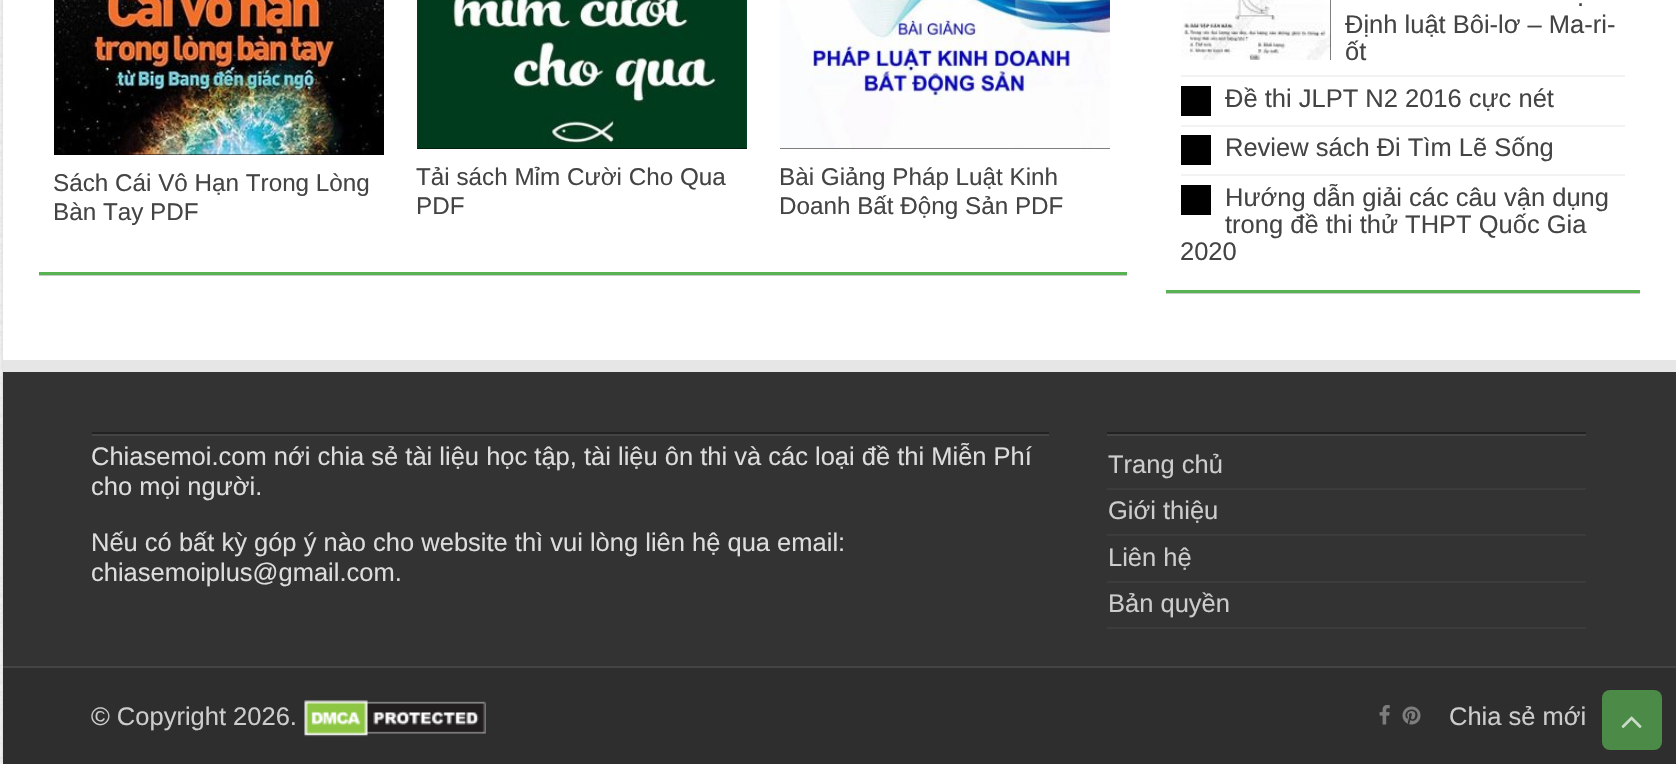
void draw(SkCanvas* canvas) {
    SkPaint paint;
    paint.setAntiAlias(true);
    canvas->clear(0xFFFFFFFF);
    canvas->drawImageRect(SkImages::DeferredFromEncodedData(SkData::MakeFromFileName("img1.png")), SkRect::MakeXYWH(0, 0, 3, 764), SkSamplingOptions());
    paint.setColor(0xFFCACACA);
    paint.setMaskFilter(SkMaskFilter::MakeBlur(kNormal_SkBlurStyle, 2));
    canvas->drawRect(SkRect::MakeXYWH(3, -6, 1673, 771), paint);
    paint.setMaskFilter(nullptr);
    paint.setColor(0xFFFFFFFF);
    canvas->drawRect(SkRect::MakeXYWH(3, 0, 1673, 360), paint);
    paint.setColor(0xFFCACACA);
    canvas->drawPath(SkPathBuilder().moveTo(39, 274).lineTo(39, 276).lineTo(1127, 276).lineTo(1127, -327).lineTo(1126, -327).lineTo(1126, 274).close().detach(), paint);
    paint.setColor(0xFFFFFFFF);
    canvas->drawRect(SkRect::MakeXYWH(1126, 0, 1, 272), paint);
    paint.setColor(0xFF57B252);
    canvas->drawRect(SkRect::MakeXYWH(39, 272, 1088, 3), paint);
    paint.setColor(0xFF000000);
    canvas->drawRect(SkRect::MakeXYWH(54, 154, 330, 1), paint);
    canvas->drawImageRect(SkImages::DeferredFromEncodedData(SkData::MakeFromFileName("img2.png")), SkRect::MakeXYWH(54, 0, 330, 155), SkSamplingOptions());
    SkFont font1(fontMgr->matchFamilyStyle("Liberation Sans", SkFontStyle::Normal()), 24.25f);
    font1.setSubpixel(true);
    paint.setColor(0xFF444444);
    canvas->drawString("Sách Cái Vô Hạn Trong Lòng", 53, 191, font1, paint);
    canvas->drawString("Bàn Tay PDF", 53, 220, font1, paint);
    paint.setColor(0xFF000000);
    canvas->drawRect(SkRect::MakeXYWH(417, 148, 330, 1), paint);
    canvas->drawImageRect(SkImages::DeferredFromEncodedData(SkData::MakeFromFileName("img3.png")), SkRect::MakeXYWH(417, 0, 330, 149), SkSamplingOptions());
    paint.setColor(0xFF444444);
    canvas->drawString("Tải sách Mỉm Cười Cho Qua", 416, 185, font1, paint);
    canvas->drawString("PDF", 416, 214, font1, paint);
    paint.setColor(0xFF000000);
    canvas->drawRect(SkRect::MakeXYWH(780, 148, 330, 1), paint);
    canvas->drawImageRect(SkImages::DeferredFromEncodedData(SkData::MakeFromFileName("img4.png")), SkRect::MakeXYWH(780, 0, 330, 149), SkSamplingOptions());
    paint.setColor(0xFF444444);
    canvas->drawString("Bài Giảng Pháp Luật Kinh", 779, 185, font1, paint);
    canvas->drawString("Doanh Bất Động Sản PDF", 779, 214, font1, paint);
    paint.setColor(0xFFCACACA);
    canvas->drawPath(SkPathBuilder().moveTo(1166, 292).lineTo(1166, 294).lineTo(1640, 294).lineTo(1640, -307).lineTo(1640, 292).close().detach(), paint);
    paint.setColor(0xFF57B252);
    canvas->drawRect(SkRect::MakeXYWH(1166, 290, 474, 3), paint);
    paint.setColor(0xFFF2F2F2);
    canvas->drawRect(SkRect::MakeXYWH(1181, 75, 444, 2), paint);
    paint.setColor(0xFF000000);
    canvas->drawRect(SkRect::MakeXYWH(1330, 0, 1, 60), paint);
    canvas->drawImageRect(SkImages::DeferredFromEncodedData(SkData::MakeFromFileName("img5.png")), SkRect::MakeXYWH(1181, 0, 150, 60), SkSamplingOptions());
    SkFont font2(fontMgr->matchFamilyStyle("Liberation Sans", SkFontStyle::Normal()), 25.5f);
    font2.setSubpixel(true);
    paint.setColor(0xFF444444);
    canvas->drawString(".", 1577, 6, font2, paint);
    canvas->drawString("Định luật Bôi-lơ – Ma-ri-", 1345, 33, font2, paint);
    canvas->drawString("ốt", 1345, 60, font2, paint);
    paint.setColor(0xFFF2F2F2);
    canvas->drawRect(SkRect::MakeXYWH(1181, 125, 444, 2), paint);
    paint.setColor(0xFF000000);
    canvas->drawRect(SkRect::MakeXYWH(1181, 86, 30, 30), paint);
    paint.setColor(0xFF444444);
    canvas->drawString("Đề thi JLPT N2 2016 cực nét", 1225, 107, font2, paint);
    paint.setColor(0xFFF2F2F2);
    canvas->drawRect(SkRect::MakeXYWH(1181, 174, 444, 2), paint);
    paint.setColor(0xFF000000);
    canvas->drawRect(SkRect::MakeXYWH(1181, 135, 30, 30), paint);
    paint.setColor(0xFF444444);
    canvas->drawString("Review sách Đi Tìm Lẽ Sống", 1225, 156, font2, paint);
    canvas->drawString("Hướng dẫn giải các câu vận dụng", 1225, 206, font2, paint);
    canvas->drawString("trong đề thi thử THPT Quốc Gia", 1225, 233, font2, paint);
    canvas->drawString("2020", 1180, 260, font2, paint);
    paint.setColor(0xFF000000);
    canvas->drawRect(SkRect::MakeXYWH(1181, 185, 30, 30), paint);
    paint.setColor(0xFFE6E6E6);
    canvas->drawPath(SkPathBuilder().moveTo(3, 360).lineTo(3, 372).lineTo(1676, 372).lineTo(1676, 654).lineTo(1676, 360).close().detach(), paint);
    paint.setColor(0xFF333333);
    canvas->drawRect(SkRect::MakeXYWH(3, 372, 1673, 294), paint);
    paint.setColor(0xFF222222);
    canvas->drawRect(SkRect::MakeXYWH(92, 432, 957, 2), paint);
    paint.setColor(0xFF444444);
    canvas->drawRect(SkRect::MakeXYWH(92, 434, 957, 2), paint);
    paint.setColor(0xFFDDDDDD);
    canvas->drawString("Chiasemoi.com nới chia sẻ tài liệu học tập, tài liệu ôn thi và các loại đề thi Miễn Phí", 91, 465, font2, paint);
    canvas->drawString("cho mọi người.", 91, 495, font2, paint);
    canvas->drawString("Nếu có bất kỳ góp ý nào cho website thì vui lòng liên hệ qua email:", 91, 551, font2, paint);
    canvas->drawString("chiasemoiplus@gmail.com.", 91, 581, font2, paint);
    paint.setColor(0xFF222222);
    canvas->drawRect(SkRect::MakeXYWH(1107, 432, 479, 2), paint);
    paint.setColor(0xFF444444);
    canvas->drawRect(SkRect::MakeXYWH(1107, 434, 479, 2), paint);
    paint.setColor(0xFF3C3C3C);
    canvas->drawRect(SkRect::MakeXYWH(1107, 488, 479, 2), paint);
    paint.setColor(0xFFCCCCCC);
    canvas->drawString("Trang chủ", 1108, 473, font2, paint);
    paint.setColor(0xFF3C3C3C);
    canvas->drawRect(SkRect::MakeXYWH(1107, 534, 479, 2), paint);
    paint.setColor(0xFFCCCCCC);
    canvas->drawString("Giới thiệu", 1108, 519, font2, paint);
    paint.setColor(0xFF3C3C3C);
    canvas->drawRect(SkRect::MakeXYWH(1107, 581, 479, 2), paint);
    paint.setColor(0xFFCCCCCC);
    canvas->drawString("Liên hệ", 1108, 566, font2, paint);
    paint.setColor(0xFF3C3C3C);
    canvas->drawRect(SkRect::MakeXYWH(1107, 627, 479, 2), paint);
    paint.setColor(0xFFCCCCCC);
    canvas->drawString("Bản quyền", 1108, 612, font2, paint);
    paint.setColor(0xFF2E2E2E);
    canvas->drawRect(SkRect::MakeXYWH(3, 668, 1673, 96), paint);
    paint.setColor(0xFF444444);
    canvas->drawRect(SkRect::MakeXYWH(3, 666, 1673, 2), paint);
    paint.setColor(0xFFCCCCCC);
    canvas->drawString("© Copyright 2026.", 91, 725, font2, paint);
    canvas->drawImageRect(SkImages::DeferredFromEncodedData(SkData::MakeFromFileName("img6.png")), SkRect::MakeXYWH(304, 700, 182, 37), SkSamplingOptions());
    canvas->drawImageRect(SkImages::DeferredFromEncodedData(SkData::MakeFromFileName("img7.png")), SkRect::MakeXYWH(1379, 705, 11, 20), SkSamplingOptions());
    canvas->drawImageRect(SkImages::DeferredFromEncodedData(SkData::MakeFromFileName("img8.png")), SkRect::MakeXYWH(1402, 706, 19, 19), SkSamplingOptions());
    canvas->drawString("Chia sẻ mới", 1449, 725, font2, paint);
    paint.setColor(0xFF4B8A47);
    canvas->drawRoundRect(SkRect::MakeXYWH(1602, 690, 60, 60), 8, 8, paint);
    canvas->drawImageRect(SkImages::DeferredFromEncodedData(SkData::MakeFromFileName("img9.png")), SkRect::MakeXYWH(1621, 716, 21, 12), SkSamplingOptions());
}
